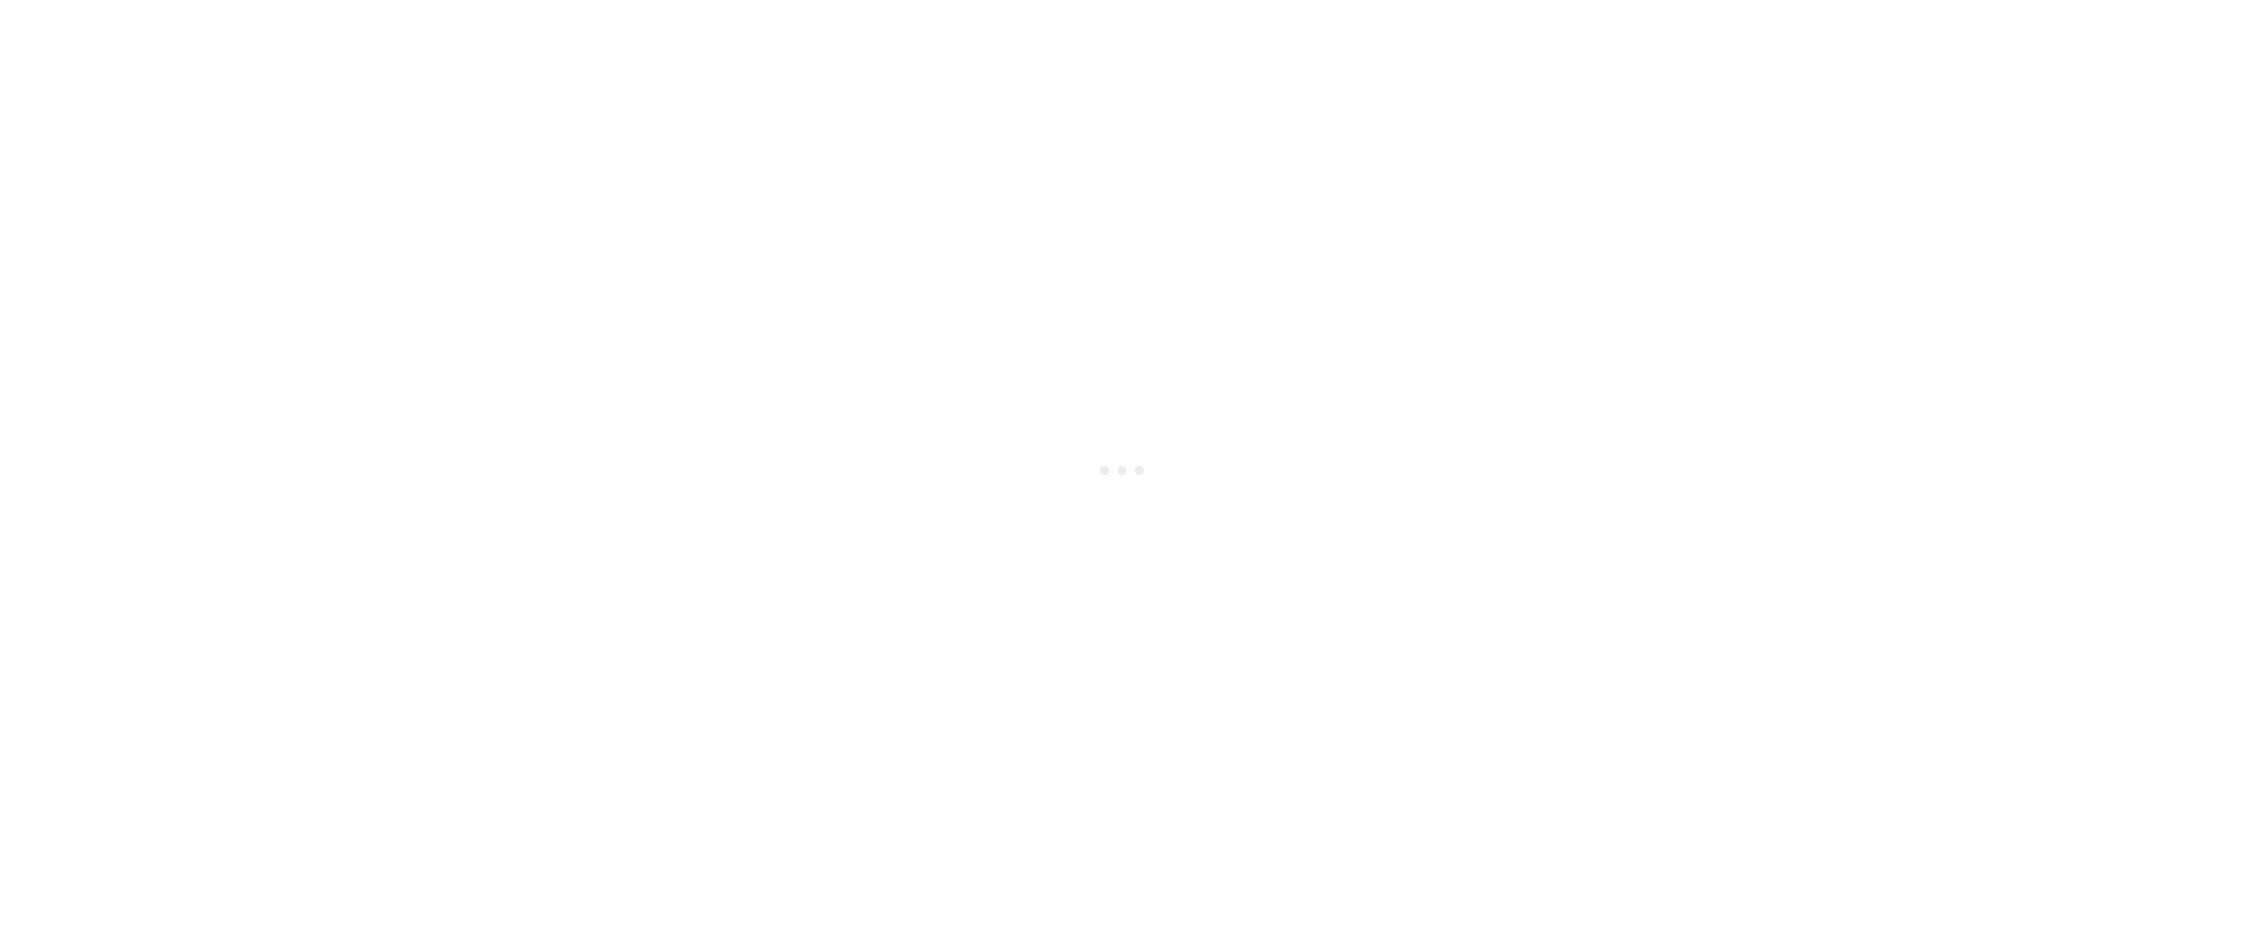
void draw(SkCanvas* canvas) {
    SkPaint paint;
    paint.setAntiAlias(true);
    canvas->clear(0xFFFFFFFF);
    paint.setColor(0xFFECECEC);
    canvas->drawCircle(1104.5f, 470.5f, 4.5f, paint);
    canvas->drawRoundRect(SkRect::MakeXYWH(1118, 466, 8, 9), 4, 4, paint);
    canvas->drawCircle(1139.5f, 470.5f, 4.5f, paint);
}
